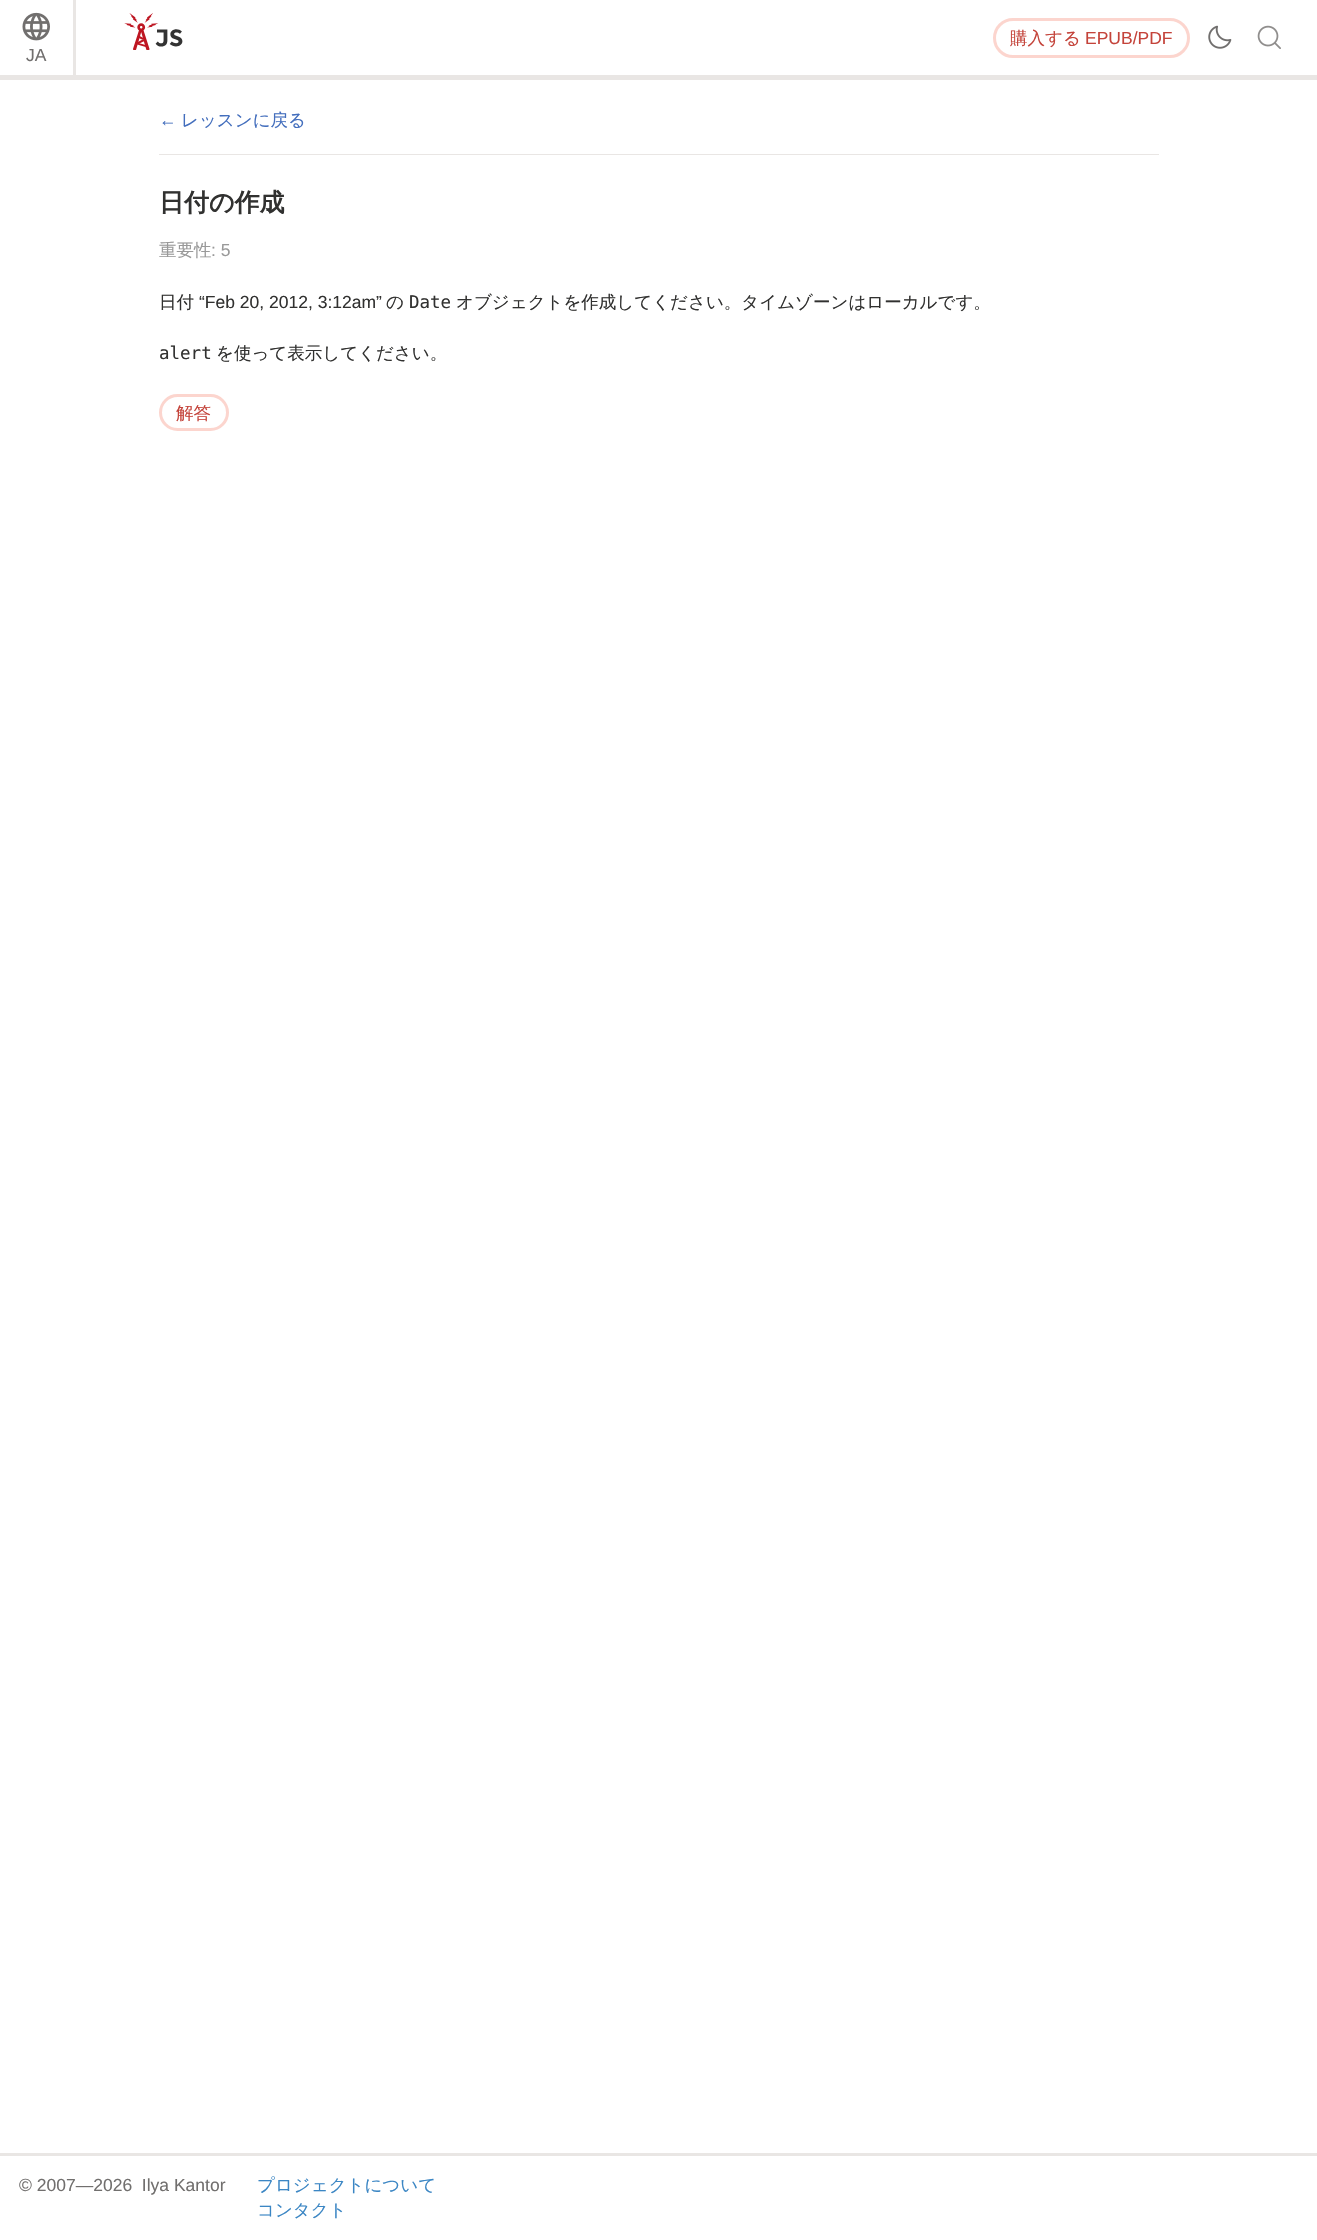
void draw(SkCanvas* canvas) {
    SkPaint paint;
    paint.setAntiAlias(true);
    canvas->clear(0xFFFFFFFF);
    paint.setColor(0xFFE9E6E4);
    canvas->drawRect(SkRect::MakeXYWH(0, 75, 1317, 5), paint);
    canvas->drawImageRect(SkImages::DeferredFromEncodedData(SkData::MakeFromFileName("img1.png")), SkRect::MakeXYWH(124, 13, 59, 37), SkSamplingOptions());
    paint.setStyle(SkPaint::kStroke_Style);
    paint.setStrokeWidth(3);
    paint.setColor(0xFFFCD5CE);
    canvas->drawRoundRect(SkRect::MakeXYWH(994.5f, 19.5f, 194, 37), 18.5f, 18.5f, paint);
    SkFont font1(fontMgr->matchFamilyStyle("WenQuanYi Zen Hei", SkFontStyle(500, SkFontStyle::kNormal_Width, SkFontStyle::kUpright_Slant)), 17.5f);
    font1.setSubpixel(true);
    paint.setStyle(SkPaint::kFill_Style);
    paint.setColor(0xFFC4433A);
    canvas->drawString("購入する", 1010, 44, font1, paint);
    SkFont font2(fontMgr->matchFamilyStyle("Liberation Sans", SkFontStyle::Normal()), 17.5f);
    font2.setSubpixel(true);
    canvas->drawString("EPUB/PDF", 1085, 44, font2, paint);
    canvas->drawImageRect(SkImages::DeferredFromEncodedData(SkData::MakeFromFileName("img2.png")), SkRect::MakeXYWH(1208, 25, 24, 24), SkSamplingOptions());
    canvas->drawImageRect(SkImages::DeferredFromEncodedData(SkData::MakeFromFileName("img3.png")), SkRect::MakeXYWH(1257, 25, 24, 24), SkSamplingOptions());
    paint.setColor(0xFFE9E6E4);
    canvas->drawRect(SkRect::MakeXYWH(73, 0, 3, 75), paint);
    canvas->drawImageRect(SkImages::DeferredFromEncodedData(SkData::MakeFromFileName("img4.png")), SkRect::MakeXYWH(22, 12, 28, 29), SkSamplingOptions());
    paint.setColor(0xFF716F6E);
    canvas->drawString("JA", 26, 61, font2, paint);
    paint.setColor(0xFF436EBD);
    canvas->drawString("←", 159, 126, font2, paint);
    canvas->drawString("レッスンに戻る", 181, 126, font1, paint);
    paint.setColor(0xFFE9E6E4);
    canvas->drawRect(SkRect::MakeXYWH(159, 154, 1000, 1), paint);
    SkFont font3(fontMgr->matchFamilyStyle("WenQuanYi Zen Hei", SkFontStyle::Bold()), 25);
    font3.setSubpixel(true);
    paint.setColor(0xFF313130);
    canvas->drawString("日付の作成", 159, 211, font3, paint);
    paint.setColor(0xFF999999);
    canvas->drawString("重要性", 159, 256, font1, paint);
    canvas->drawString(": 5", 211, 256, font2, paint);
    paint.setColor(0xFF313130);
    canvas->drawString("日付", 159, 308, font1, paint);
    canvas->drawString("“Feb 20, 2012, 3:12am”", 199, 308, font2, paint);
    canvas->drawString("の", 386, 308, font1, paint);
    SkFont font4(fontMgr->matchFamilyStyle("DejaVu Sans Mono", SkFontStyle::Normal()), 17.5f);
    font4.setSubpixel(true);
    canvas->drawString("Date", 409, 308, font4, paint);
    canvas->drawString("オブジェクトを作成してください。タイムゾーンはローカルです。", 456, 308, font1, paint);
    canvas->drawString("alert", 159, 359, font4, paint);
    canvas->drawString("を使って表示してください。", 216, 359, font1, paint);
    paint.setStyle(SkPaint::kStroke_Style);
    paint.setColor(0xFFFCD5CE);
    canvas->drawRoundRect(SkRect::MakeXYWH(160.5f, 395.5f, 67, 34), 17, 17, paint);
    paint.setStyle(SkPaint::kFill_Style);
    paint.setColor(0xFFC4433A);
    canvas->drawString("解答", 176, 419, font1, paint);
    paint.setColor(0xFFE9E6E4);
    canvas->drawRect(SkRect::MakeXYWH(0, 2153, 1317, 3), paint);
    paint.setColor(0xFF716F6E);
    canvas->drawString("© 2007—2026  Ilya Kantor", 19, 2191, font2, paint);
    paint.setColor(0xFF3B86C4);
    canvas->drawString("プロジェクトについて", 257, 2191, font1, paint);
    canvas->drawString("コンタクト", 257, 2216, font1, paint);
}
